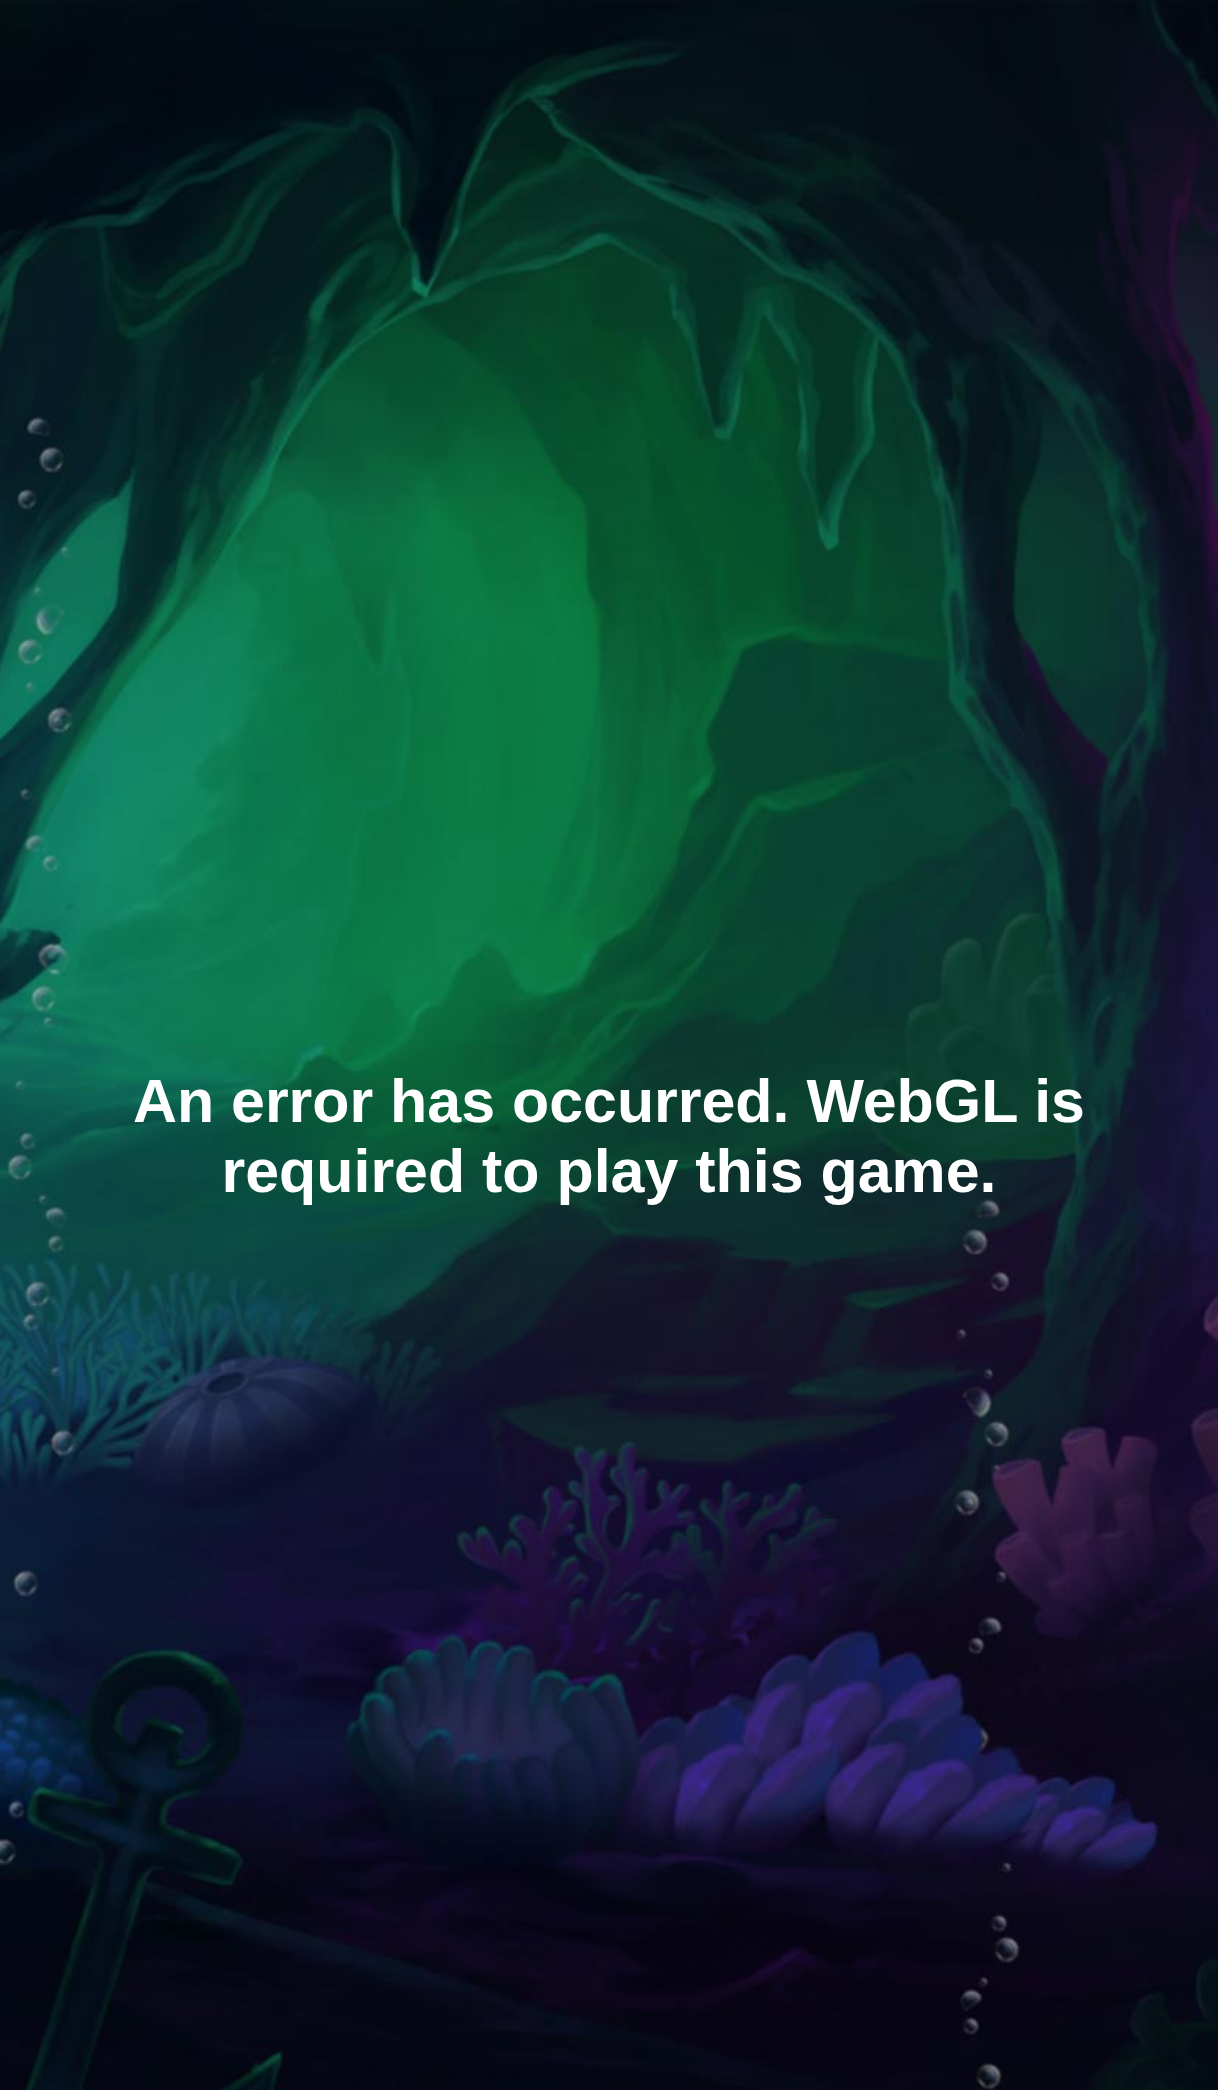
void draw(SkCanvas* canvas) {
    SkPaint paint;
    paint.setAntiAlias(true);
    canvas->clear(0xFFFFFFFF);
    canvas->drawImageRect(SkImages::DeferredFromEncodedData(SkData::MakeFromFileName("img1.png")), SkRect::MakeXYWH(0, 0, 1218, 2090), SkSamplingOptions());
}
